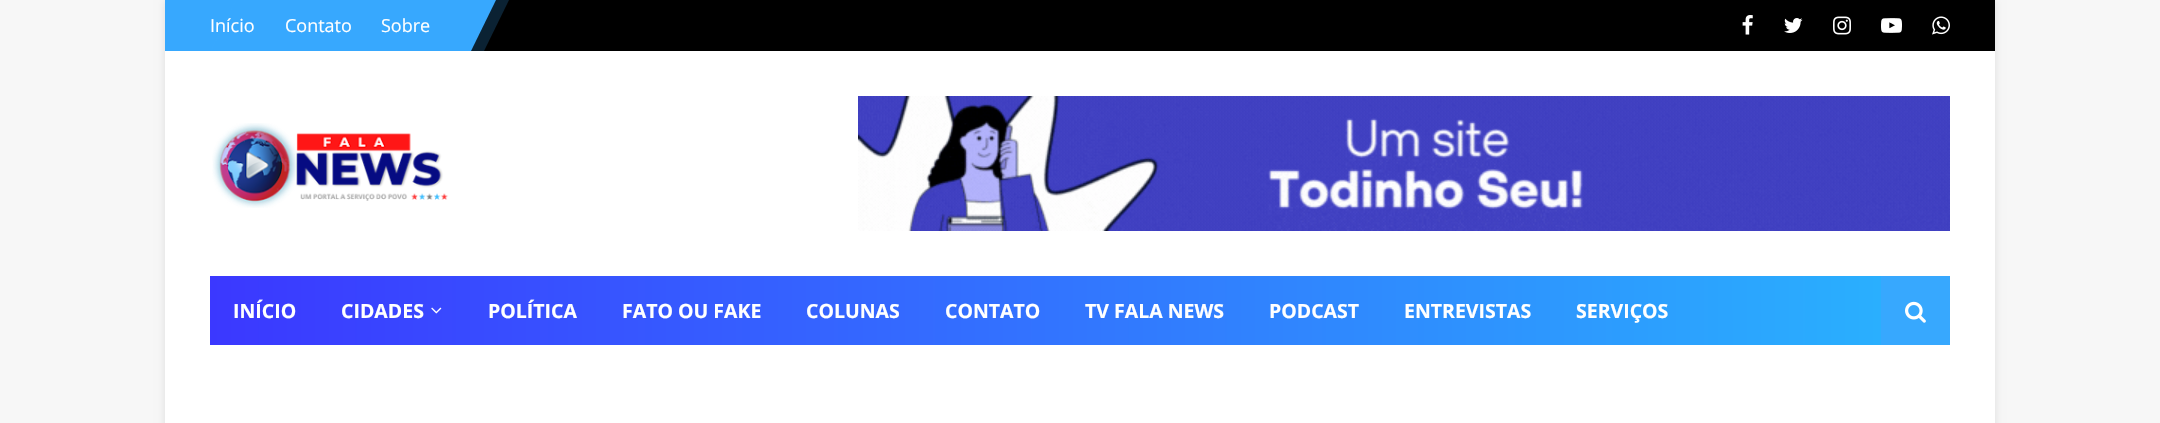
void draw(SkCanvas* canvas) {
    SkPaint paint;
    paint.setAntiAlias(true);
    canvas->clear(0xFFF7F7F7);
    paint.setColor(0x1A000000);
    paint.setMaskFilter(SkMaskFilter::MakeBlur(kNormal_SkBlurStyle, 4));
    canvas->drawRect(SkRect::MakeXYWH(165, 0, 1830, 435), paint);
    paint.setMaskFilter(nullptr);
    paint.setColor(0xFFFFFFFF);
    canvas->drawRect(SkRect::MakeXYWH(165, 51, 1830, 372), paint);
    paint.setColor(0xFF000000);
    canvas->drawRect(SkRect::MakeXYWH(471, 0, 1524, 51), paint);
    paint.setColor(0xFF37A8FE);
    canvas->drawRect(SkRect::MakeXYWH(165, 0, 57, 51), paint);
    canvas->drawPath(SkPathBuilder().moveTo(222, 0).lineTo(496, 0).lineTo(471, 51).lineTo(198, 51).close().detach(), paint);
    paint.setColor(0x3337A8FE);
    canvas->drawPath(SkPathBuilder().moveTo(236, 0).lineTo(509, 0).lineTo(484, 51).lineTo(211, 51).close().detach(), paint);
    SkFont font1(fontMgr->matchFamilyStyle("Open Sans", SkFontStyle::Normal()), 18);
    font1.setSubpixel(true);
    paint.setColor(0xFFFFFFFF);
    canvas->drawString("Início", 210, 32, font1, paint);
    canvas->drawString("Contato", 285, 32, font1, paint);
    canvas->drawString("Sobre", 381, 32, font1, paint);
    canvas->drawImageRect(SkImages::DeferredFromEncodedData(SkData::MakeFromFileName("img1.png")), SkRect::MakeXYWH(1742, 15, 11, 20), SkSamplingOptions());
    canvas->drawImageRect(SkImages::DeferredFromEncodedData(SkData::MakeFromFileName("img2.png")), SkRect::MakeXYWH(1784, 18, 19, 15), SkSamplingOptions());
    canvas->drawImageRect(SkImages::DeferredFromEncodedData(SkData::MakeFromFileName("img3.png")), SkRect::MakeXYWH(1833, 16, 18, 19), SkSamplingOptions());
    canvas->drawImageRect(SkImages::DeferredFromEncodedData(SkData::MakeFromFileName("img4.png")), SkRect::MakeXYWH(1881, 18, 21, 15), SkSamplingOptions());
    canvas->drawImageRect(SkImages::DeferredFromEncodedData(SkData::MakeFromFileName("img5.png")), SkRect::MakeXYWH(1932, 16, 18, 19), SkSamplingOptions());
    canvas->drawImageRect(SkImages::DeferredFromEncodedData(SkData::MakeFromFileName("img6.png")), SkRect::MakeXYWH(212, 123, 236, 85), SkSamplingOptions());
    canvas->drawImageRect(SkImages::DeferredFromEncodedData(SkData::MakeFromFileName("img7.png")), SkRect::MakeXYWH(858, 96, 1092, 135), SkSamplingOptions());
    {
        const SkColor colors[] = {0xFF3B38FF, 0xFF29B4FE};
        const float stops[] = {0, 1};
        const SkPoint ends[] = {{210, 311}, {1950, 310}};
        paint.setShader(SkGradientShader::MakeLinear(ends, colors, stops, 2, SkTileMode::kClamp));
        paint.setAlpha(255);
    }
    canvas->drawRect(SkRect::MakeXYWH(210, 276, 1671, 69), paint);
    SkFont font2(fontMgr->matchFamilyStyle("Open Sans", SkFontStyle::Bold()), 19.5f);
    font2.setSubpixel(true);
    paint.setShader(nullptr);
    paint.setColor(0xFFFFFFFF);
    canvas->drawString("INÍCIO", 233, 318, font2, paint);
    canvas->drawString("CIDADES", 341, 318, font2, paint);
    canvas->drawImageRect(SkImages::DeferredFromEncodedData(SkData::MakeFromFileName("img8.png")), SkRect::MakeXYWH(431, 307, 11, 7), SkSamplingOptions());
    canvas->drawString("POLÍTICA", 488, 318, font2, paint);
    canvas->drawString("FATO OU FAKE", 622, 318, font2, paint);
    canvas->drawString("COLUNAS", 806, 318, font2, paint);
    canvas->drawString("CONTATO", 945, 318, font2, paint);
    canvas->drawString("TV FALA NEWS", 1085, 318, font2, paint);
    canvas->drawString("PODCAST", 1269, 318, font2, paint);
    canvas->drawString("ENTREVISTAS", 1404, 318, font2, paint);
    canvas->drawString("SERVIÇOS", 1576, 318, font2, paint);
    paint.setColor(0xFF37A8FE);
    canvas->drawRect(SkRect::MakeXYWH(1881, 276, 69, 69), paint);
    canvas->drawImageRect(SkImages::DeferredFromEncodedData(SkData::MakeFromFileName("img9.png")), SkRect::MakeXYWH(1905, 301, 21, 22), SkSamplingOptions());
}
